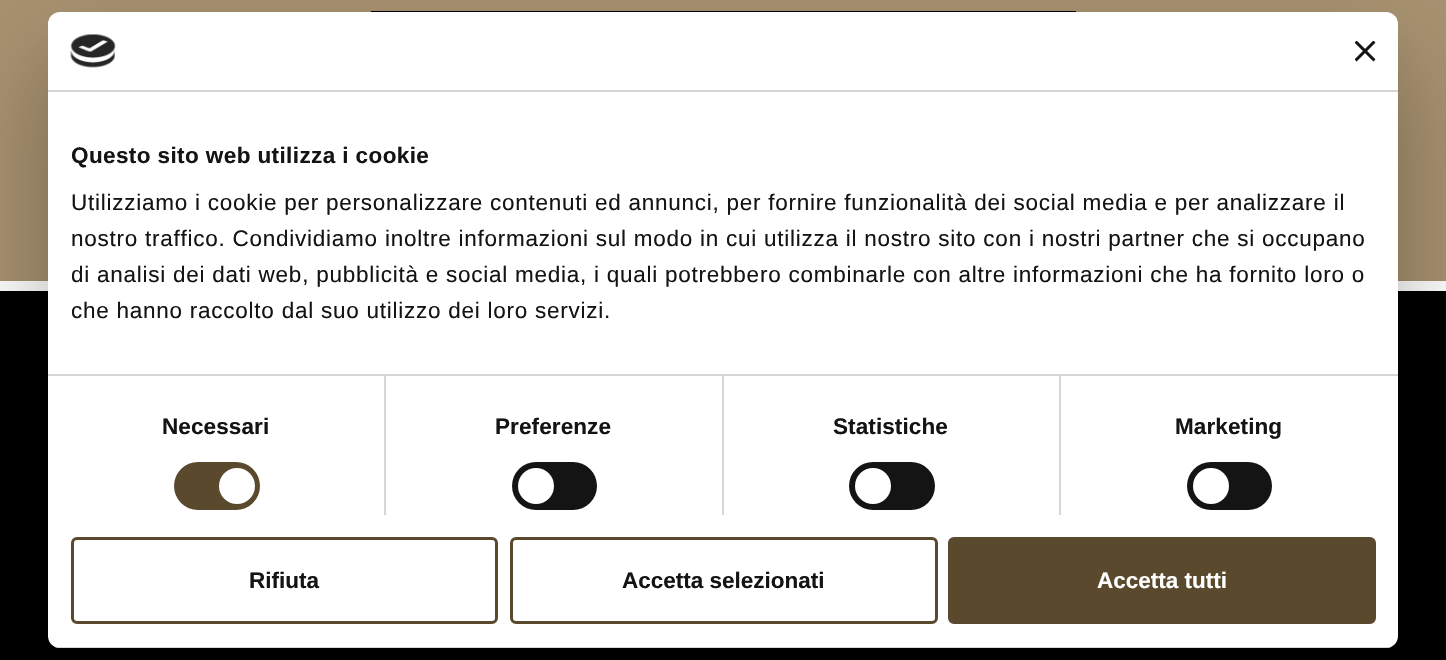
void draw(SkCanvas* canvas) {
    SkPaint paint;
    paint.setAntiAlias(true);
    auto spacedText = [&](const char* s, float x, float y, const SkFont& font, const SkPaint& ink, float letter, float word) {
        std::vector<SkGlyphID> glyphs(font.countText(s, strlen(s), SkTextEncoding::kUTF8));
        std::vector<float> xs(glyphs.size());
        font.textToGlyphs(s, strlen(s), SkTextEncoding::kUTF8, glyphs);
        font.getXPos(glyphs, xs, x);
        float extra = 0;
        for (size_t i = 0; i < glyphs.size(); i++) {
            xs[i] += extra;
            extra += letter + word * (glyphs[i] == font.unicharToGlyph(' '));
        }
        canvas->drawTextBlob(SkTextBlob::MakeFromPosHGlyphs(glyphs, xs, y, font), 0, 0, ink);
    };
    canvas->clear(0xFFFFFFFF);
    paint.setColor(0xFFA89270);
    canvas->drawRect(SkRect::MakeXYWH(0, 0, 1446, 281), paint);
    paint.setColor(0xFF000000);
    canvas->drawRect(SkRect::MakeXYWH(371, 11, 705, 1), paint);
    canvas->drawRect(SkRect::MakeXYWH(0, 291, 1446, 369), paint);
    paint.setColor(0x4D000000);
    paint.setMaskFilter(SkMaskFilter::MakeBlur(kNormal_SkBlurStyle, 51));
    canvas->drawRoundRect(SkRect::MakeXYWH(48, 60, 1350, 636), 12, 12, paint);
    paint.setMaskFilter(nullptr);
    paint.setColor(0xFFFFFFFF);
    canvas->drawRoundRect(SkRect::MakeXYWH(48, 12, 1350, 636), 12, 12, paint);
    paint.setColor(0xFFD6D6D6);
    canvas->drawRect(SkRect::MakeXYWH(48, 90, 1350, 2), paint);
    canvas->drawImageRect(SkImages::DeferredFromEncodedData(SkData::MakeFromFileName("img1.png")), SkRect::MakeXYWH(70, 34, 46, 34), SkSamplingOptions());
    canvas->drawImageRect(SkImages::DeferredFromEncodedData(SkData::MakeFromFileName("img2.png")), SkRect::MakeXYWH(1355, 41, 21, 21), SkSamplingOptions());
    canvas->drawRect(SkRect::MakeXYWH(384, 375, 2, 140), paint);
    canvas->drawRect(SkRect::MakeXYWH(722, 375, 2, 140), paint);
    canvas->drawRect(SkRect::MakeXYWH(1059, 375, 2, 140), paint);
    canvas->drawRect(SkRect::MakeXYWH(48, 374, 1350, 2), paint);
    SkFont font1(fontMgr->matchFamilyStyle("Liberation Sans", SkFontStyle::Bold()), 22.5f);
    font1.setSubpixel(true);
    paint.setColor(0xFF141414);
    spacedText("Questo sito web utilizza i cookie", 71, 163, font1, paint, 0.4f, 0);
    SkFont font2(fontMgr->matchFamilyStyle("Liberation Sans", SkFontStyle::Normal()), 22.5f);
    font2.setSubpixel(true);
    spacedText("Utilizziamo i cookie per personalizzare contenuti ed annunci, per fornire funzionalità dei social media e per analizzare il", 71, 210, font2, paint, 0.75f, 0);
    spacedText("nostro traffico. Condividiamo inoltre informazioni sul modo in cui utilizza il nostro sito con i nostri partner che si occupano", 71, 246, font2, paint, 0.75f, 0);
    spacedText("di analisi dei dati web, pubblicità e social media, i quali potrebbero combinarle con altre informazioni che ha fornito loro o", 71, 282, font2, paint, 0.75f, 0);
    spacedText("che hanno raccolto dal suo utilizzo dei loro servizi.", 71, 318, font2, paint, 0.75f, 0);
    spacedText("Necessari", 162, 434, font1, paint, 0.1f, 0);
    paint.setColor(0xFF5A492D);
    canvas->drawRoundRect(SkRect::MakeXYWH(174, 462, 86, 48), 24, 24, paint);
    paint.setColor(0xFFFFFFFF);
    canvas->drawCircle(237, 486, 18, paint);
    paint.setColor(0xFF141414);
    spacedText("Preferenze", 495, 434, font1, paint, 0.1f, 0);
    canvas->drawRoundRect(SkRect::MakeXYWH(512, 462, 85, 48), 24, 24, paint);
    paint.setColor(0xFFFFFFFF);
    canvas->drawCircle(536, 486, 18, paint);
    paint.setColor(0xFF141414);
    spacedText("Statistiche", 833, 434, font1, paint, 0.1f, 0);
    canvas->drawRoundRect(SkRect::MakeXYWH(849, 462, 86, 48), 24, 24, paint);
    paint.setColor(0xFFFFFFFF);
    canvas->drawCircle(873, 486, 18, paint);
    paint.setColor(0xFF141414);
    spacedText("Marketing", 1175, 434, font1, paint, 0.1f, 0);
    canvas->drawRoundRect(SkRect::MakeXYWH(1187, 462, 85, 48), 24, 24, paint);
    paint.setColor(0xFFFFFFFF);
    canvas->drawCircle(1211, 486, 18, paint);
    canvas->save();
    canvas->clipPath(SkPathBuilder().moveTo(60, 12).lineTo(1386, 12).cubicTo(1392.5f, 12, 1398, 17.5f, 1398, 24).lineTo(1398, 636).cubicTo(1398, 642.5f, 1392.5f, 648, 1386, 648).lineTo(60, 648).cubicTo(53.5f, 648, 48, 642.5f, 48, 636).lineTo(48, 24).cubicTo(48, 17.5f, 53.5f, 12, 60, 12).close().detach(), true);
    paint.setColor(0xFFD6D6D6);
    canvas->drawRect(SkRect::MakeXYWH(48, 647, 1350, 1), paint);
    canvas->restore();
    paint.setStyle(SkPaint::kStroke_Style);
    paint.setStrokeWidth(3);
    paint.setColor(0xFF5A492D);
    canvas->drawRoundRect(SkRect::MakeXYWH(72.5f, 538.5f, 424, 84), 4.5f, 4.5f, paint);
    paint.setStyle(SkPaint::kFill_Style);
    paint.setColor(0xFF141414);
    canvas->drawString("Rifiuta", 249, 588, font1, paint);
    paint.setStyle(SkPaint::kStroke_Style);
    paint.setColor(0xFF5A492D);
    canvas->drawRoundRect(SkRect::MakeXYWH(511.5f, 538.5f, 425, 84), 4.5f, 4.5f, paint);
    paint.setStyle(SkPaint::kFill_Style);
    paint.setColor(0xFF141414);
    canvas->drawString("Accetta selezionati", 622, 588, font1, paint);
    paint.setColor(0xFF5A492D);
    canvas->drawRoundRect(SkRect::MakeXYWH(949.5f, 538.5f, 425, 84), 4.5f, 4.5f, paint);
    paint.setStyle(SkPaint::kStroke_Style);
    canvas->drawRoundRect(SkRect::MakeXYWH(949.5f, 538.5f, 425, 84), 4.5f, 4.5f, paint);
    paint.setStyle(SkPaint::kFill_Style);
    paint.setColor(0xFFFFFFFF);
    canvas->drawString("Accetta tutti", 1097, 588, font1, paint);
}
